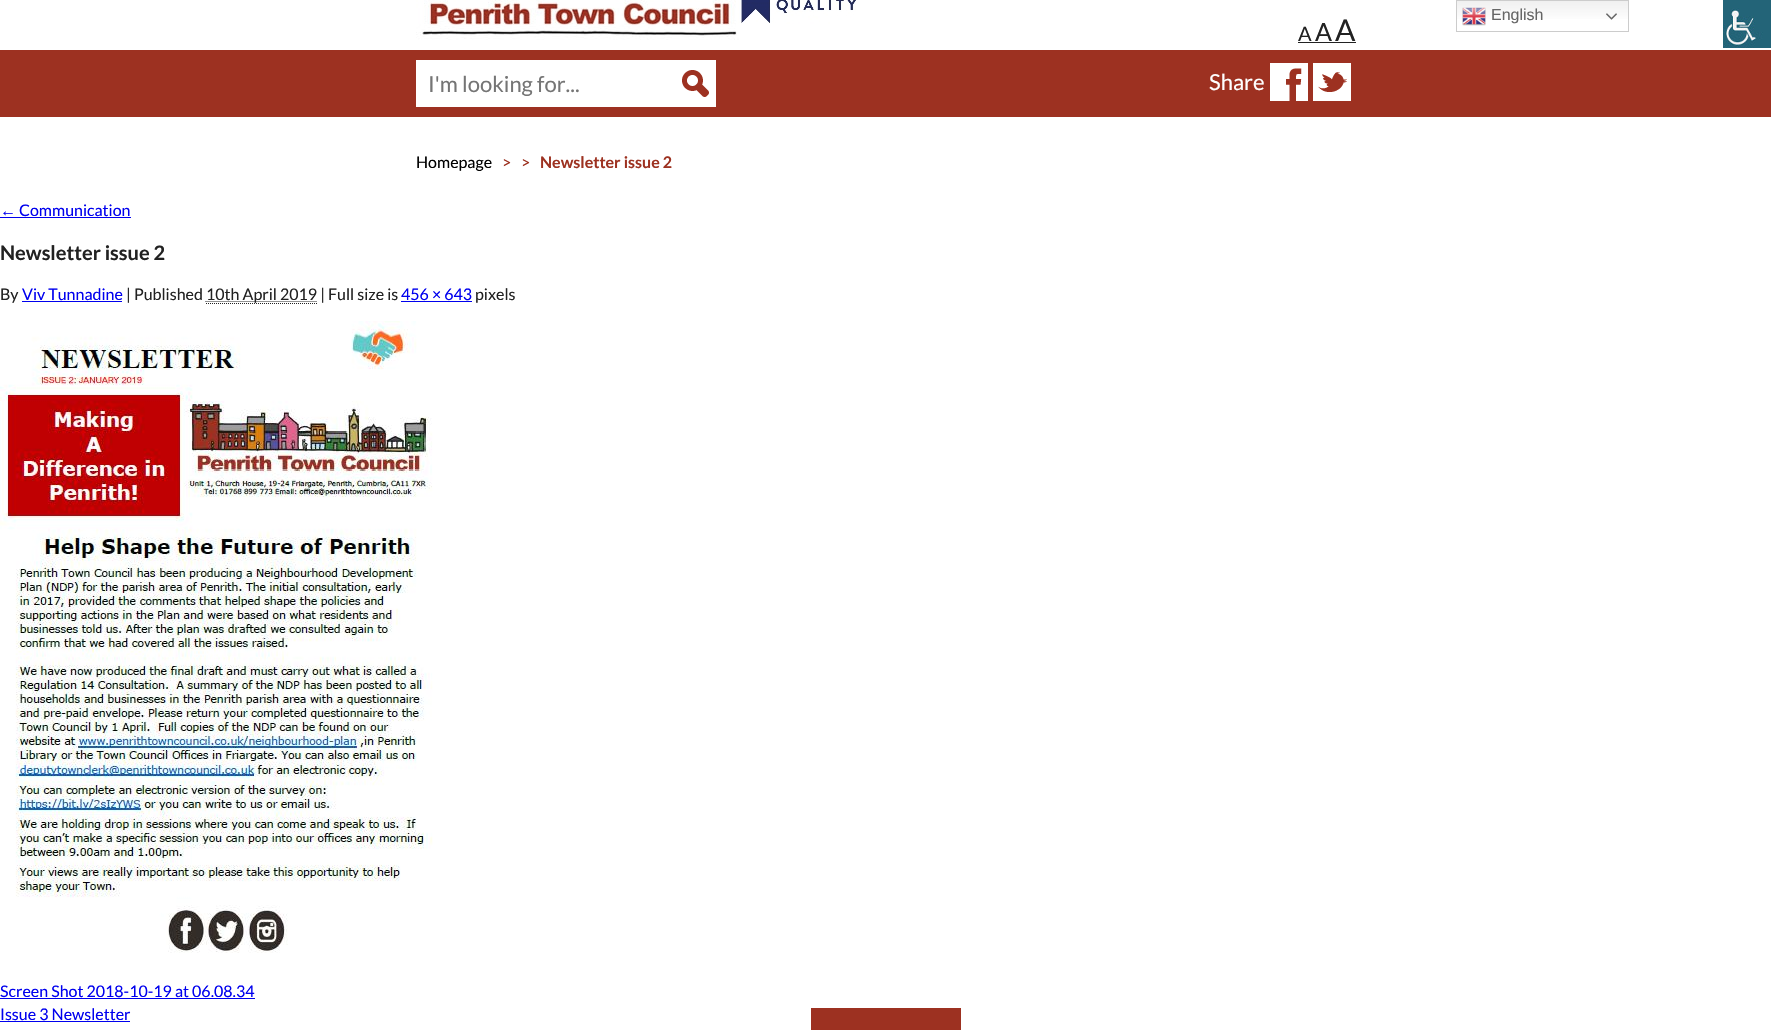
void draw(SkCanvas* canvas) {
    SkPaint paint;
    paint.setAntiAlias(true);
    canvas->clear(0xFFFFFFFF);
    {
        const SkColor colors[] = {0xFFEFEFEF, 0xFFFFFFFF};
        const float stops[] = {0, 0.7f};
        const SkPoint ends[] = {{1543, 0}, {1543, 32}};
        paint.setShader(SkGradientShader::MakeLinear(ends, colors, stops, 2, SkTileMode::kClamp));
        paint.setAlpha(255);
    }
    canvas->drawRect(SkRect::MakeXYWH(1457, 1, 171, 18), paint);
    paint.setStyle(SkPaint::kStroke_Style);
    paint.setStrokeWidth(1);
    paint.setShader(nullptr);
    paint.setColor(0xFFCCCCCC);
    canvas->drawRect(SkRect::MakeXYWH(1456.5f, 0.5f, 172, 31), paint);
    canvas->drawImageRect(SkImages::DeferredFromEncodedData(SkData::MakeFromFileName("img1.png")), SkRect::MakeXYWH(1462, 7, 24, 19), SkSamplingOptions());
    SkFont font1(fontMgr->matchFamilyStyle("Liberation Sans", SkFontStyle::Normal()), 16);
    font1.setSubpixel(true);
    paint.setStyle(SkPaint::kFill_Style);
    paint.setColor(0xFF666666);
    canvas->drawString("English", 1491, 20, font1, paint);
    canvas->drawImageRect(SkImages::DeferredFromEncodedData(SkData::MakeFromFileName("img2.png")), SkRect::MakeXYWH(1606, 13, 11, 7), SkSamplingOptions());
    canvas->drawImageRect(SkImages::DeferredFromEncodedData(SkData::MakeFromFileName("img3.png")), SkRect::MakeXYWH(1723, 0, 48, 48), SkSamplingOptions());
    canvas->drawImageRect(SkImages::DeferredFromEncodedData(SkData::MakeFromFileName("img4.png")), SkRect::MakeXYWH(416, 0, 440, 40), SkSamplingOptions());
    SkFont font2(fontMgr->matchFamilyStyle("Lato", SkFontStyle::Normal()), 20);
    font2.setSubpixel(true);
    paint.setColor(0xFF222222);
    canvas->drawString("A", 1298, 41, font2, paint);
    canvas->drawRect(SkRect::MakeXYWH(1298, 42, 58, 1), paint);
    SkFont font3(fontMgr->matchFamilyStyle("Lato", SkFontStyle::Normal()), 25);
    font3.setSubpixel(true);
    canvas->drawString("A", 1315, 41, font3, paint);
    SkFont font4(fontMgr->matchFamilyStyle("Lato", SkFontStyle::Normal()), 30);
    font4.setSubpixel(true);
    canvas->drawString("A", 1335, 41, font4, paint);
    paint.setColor(0xFF9D3121);
    canvas->drawRect(SkRect::MakeXYWH(0, 50, 1771, 67), paint);
    paint.setColor(0xFFFFFFFF);
    canvas->drawRect(SkRect::MakeXYWH(416, 60, 300, 47), paint);
    SkFont font5(fontMgr->matchFamilyStyle("Lato", SkFontStyle::Normal()), 22);
    font5.setSubpixel(true);
    paint.setColor(0xFF757575);
    canvas->drawString("I'm looking for...", 428, 92, font5, paint);
    canvas->drawImageRect(SkImages::DeferredFromEncodedData(SkData::MakeFromFileName("img5.png")), SkRect::MakeXYWH(682, 70, 27, 27), SkSamplingOptions());
    paint.setColor(0xFFFFFFFF);
    canvas->drawString("Share", 1209, 90, font5, paint);
    canvas->drawImageRect(SkImages::DeferredFromEncodedData(SkData::MakeFromFileName("img6.png")), SkRect::MakeXYWH(1270, 63, 38, 38), SkSamplingOptions());
    canvas->drawImageRect(SkImages::DeferredFromEncodedData(SkData::MakeFromFileName("img7.png")), SkRect::MakeXYWH(1313, 63, 38, 38), SkSamplingOptions());
    SkFont font6(fontMgr->matchFamilyStyle("Lato", SkFontStyle::Normal()), 16);
    font6.setSubpixel(true);
    paint.setColor(0xFF000000);
    canvas->drawString("Homepage", 416, 168, font6, paint);
    paint.setColor(0xFF9D3221);
    canvas->drawString(">", 502, 168, font6, paint);
    canvas->drawString(">", 521, 168, font6, paint);
    SkFont font7(fontMgr->matchFamilyStyle("Lato", SkFontStyle::Bold()), 16);
    font7.setSubpixel(true);
    canvas->drawString("Newsletter issue 2", 540, 168, font7, paint);
    paint.setColor(0xFF0000EE);
    canvas->drawString("←", 0, 216, font1, paint);
    canvas->drawRect(SkRect::MakeXYWH(0, 217, 131, 1), paint);
    canvas->drawString("Communication", 19, 216, font6, paint);
    SkFont font8(fontMgr->matchFamilyStyle("Lato", SkFontStyle::Bold()), 20);
    font8.setSubpixel(true);
    paint.setColor(0xFF222222);
    canvas->drawString("Newsletter issue 2", 0, 260, font8, paint);
    canvas->drawString("By", 0, 300, font6, paint);
    paint.setColor(0xFF0000EE);
    canvas->drawString("Viv Tunnadine", 22, 300, font6, paint);
    canvas->drawRect(SkRect::MakeXYWH(22, 301, 100, 1), paint);
    paint.setColor(0xFF222222);
    canvas->drawString("| Published", 126, 300, font6, paint);
    paint.setStyle(SkPaint::kStroke_Style);
    paint.setPathEffect(SkDashPathEffect::Make({{1, 1}}, 0));
    canvas->drawPath(SkPathBuilder().moveTo(205.5f, 301.5f).lineTo(316.5f, 301.5f).detach(), paint);
    paint.setPathEffect(nullptr);
    paint.setStyle(SkPaint::kFill_Style);
    canvas->drawString("10th April 2019 | Full size is", 206, 300, font6, paint);
    paint.setStyle(SkPaint::kStroke_Style);
    paint.setPathEffect(SkDashPathEffect::Make({{1, 1}}, 0));
    canvas->drawPath(SkPathBuilder().moveTo(206, 303.5f).lineTo(317, 303.5f).detach(), paint);
    paint.setPathEffect(nullptr);
    paint.setStyle(SkPaint::kFill_Style);
    paint.setColor(0xFF0000EE);
    canvas->drawString("456 × 643", 401, 300, font6, paint);
    canvas->drawRect(SkRect::MakeXYWH(401, 301, 71, 1), paint);
    paint.setColor(0xFF222222);
    canvas->drawString("pixels", 475, 300, font6, paint);
    canvas->drawImageRect(SkImages::DeferredFromEncodedData(SkData::MakeFromFileName("img8.png")), SkRect::MakeXYWH(0, 321, 433, 632), SkSamplingOptions());
    paint.setColor(0xFF0000EE);
    canvas->drawString("Screen Shot 2018-10-19 at 06.08.34", 0, 997, font6, paint);
    canvas->drawRect(SkRect::MakeXYWH(0, 998, 255, 1), paint);
    canvas->drawString("Issue 3 Newsletter", 0, 1020, font6, paint);
    canvas->drawRect(SkRect::MakeXYWH(0, 1021, 130, 1), paint);
    paint.setColor(0xFF9D3121);
    canvas->drawRect(SkRect::MakeXYWH(811, 1008, 150, 22), paint);
}
